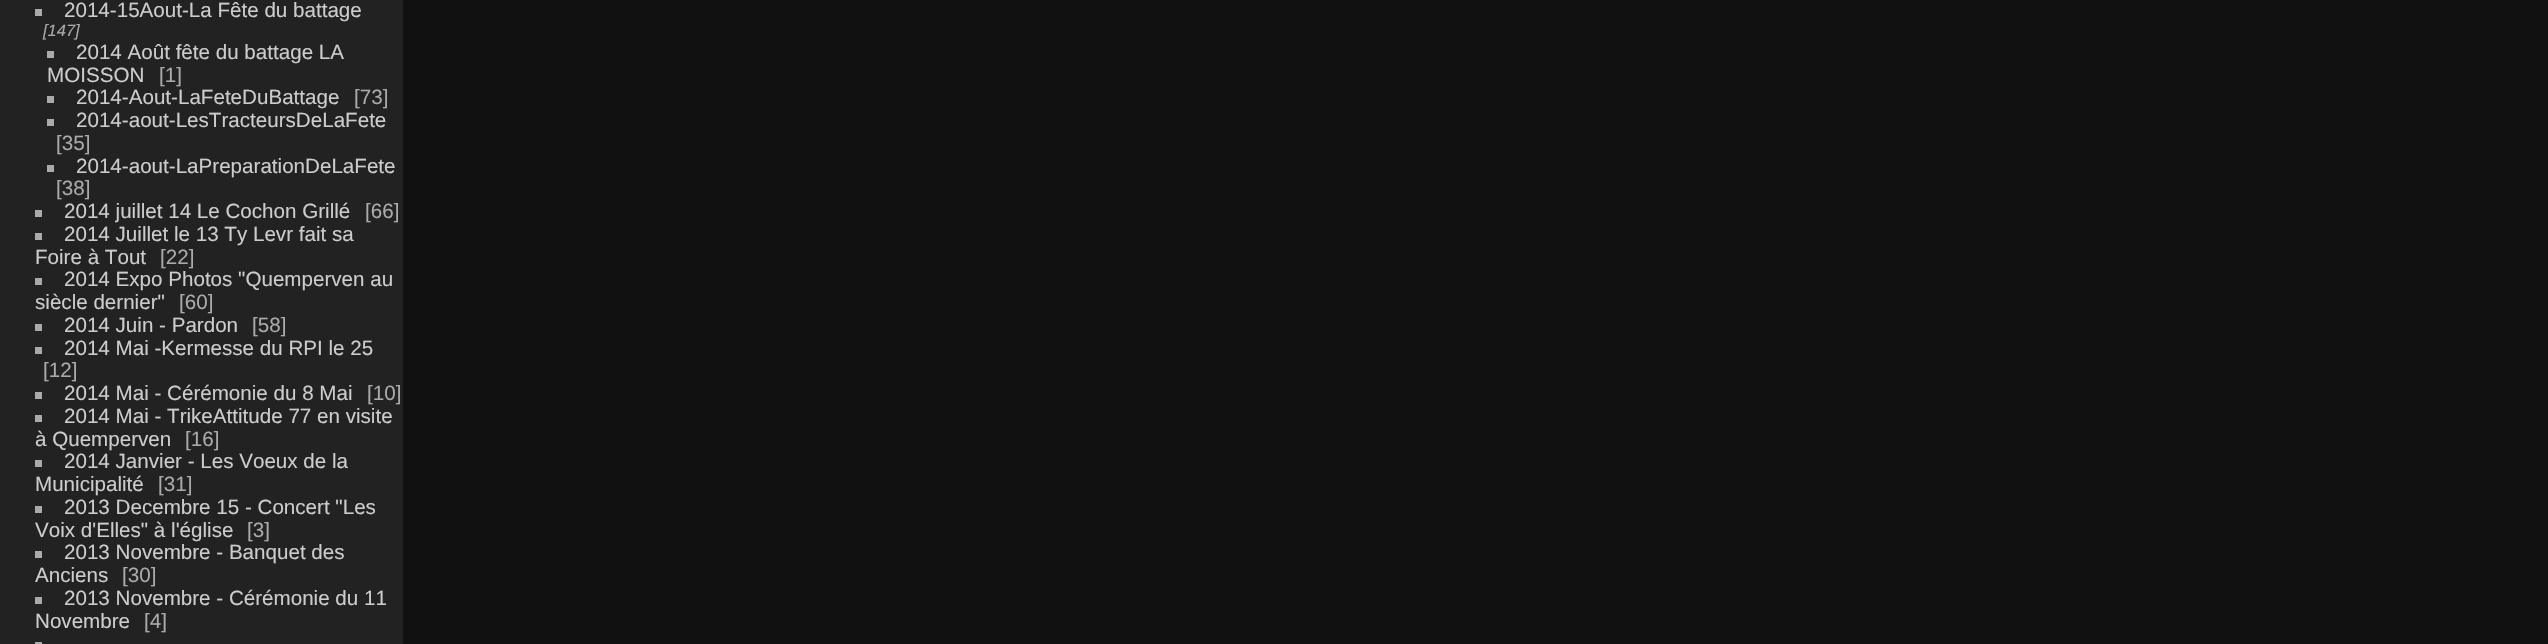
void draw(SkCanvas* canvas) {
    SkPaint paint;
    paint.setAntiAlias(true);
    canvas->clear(0xFF111111);
    paint.setColor(0xFF222222);
    canvas->drawRect(SkRect::MakeXYWH(0, 0, 403, 644), paint);
    paint.setColor(0xFFAAAAAA);
    canvas->drawRect(SkRect::MakeXYWH(35, 9, 7, 7), paint);
    SkFont font1(fontMgr->matchFamilyStyle("Liberation Sans", SkFontStyle::Normal()), 20.6f);
    font1.setSubpixel(true);
    paint.setColor(0xFFCCCCCC);
    canvas->drawString("2014-15Aout-La Fête du battage", 64, 17, font1, paint);
    SkFont font2(fontMgr->matchFamilyStyle("Liberation Sans", SkFontStyle::Italic()), 16.5f);
    font2.setSubpixel(true);
    paint.setColor(0xFFAAAAAA);
    canvas->drawString("[147]", 43, 36, font2, paint);
    canvas->drawRect(SkRect::MakeXYWH(47, 51, 7, 7), paint);
    paint.setColor(0xFFCCCCCC);
    canvas->drawString("2014 Août fête du battage LA", 76, 59, font1, paint);
    canvas->drawString("MOISSON", 47, 82, font1, paint);
    paint.setColor(0xFFAAAAAA);
    canvas->drawString("[1]", 159, 82, font1, paint);
    canvas->drawRect(SkRect::MakeXYWH(47, 96, 7, 7), paint);
    paint.setColor(0xFFCCCCCC);
    canvas->drawString("2014-Aout-LaFeteDuBattage", 76, 104, font1, paint);
    paint.setColor(0xFFAAAAAA);
    canvas->drawString("[73]", 354, 104, font1, paint);
    canvas->drawRect(SkRect::MakeXYWH(47, 119, 7, 7), paint);
    paint.setColor(0xFFCCCCCC);
    canvas->drawString("2014-aout-LesTracteursDeLaFete", 76, 127, font1, paint);
    paint.setColor(0xFFAAAAAA);
    canvas->drawString("[35]", 56, 150, font1, paint);
    canvas->drawRect(SkRect::MakeXYWH(47, 165, 7, 7), paint);
    paint.setColor(0xFFCCCCCC);
    canvas->drawString("2014-aout-LaPreparationDeLaFete", 76, 173, font1, paint);
    paint.setColor(0xFFAAAAAA);
    canvas->drawString("[38]", 56, 195, font1, paint);
    canvas->drawRect(SkRect::MakeXYWH(35, 210, 7, 7), paint);
    paint.setColor(0xFFCCCCCC);
    canvas->drawString("2014 juillet 14 Le Cochon Grillé", 64, 218, font1, paint);
    paint.setColor(0xFFAAAAAA);
    canvas->drawString("[66]", 365, 218, font1, paint);
    canvas->drawRect(SkRect::MakeXYWH(35, 233, 7, 7), paint);
    paint.setColor(0xFFCCCCCC);
    canvas->drawString("2014 Juillet le 13 Ty Levr fait sa", 64, 241, font1, paint);
    canvas->drawString("Foire à Tout", 35, 264, font1, paint);
    paint.setColor(0xFFAAAAAA);
    canvas->drawString("[22]", 160, 264, font1, paint);
    canvas->drawRect(SkRect::MakeXYWH(35, 278, 7, 7), paint);
    paint.setColor(0xFFCCCCCC);
    canvas->drawString("2014 Expo Photos \"Quemperven au", 64, 286, font1, paint);
    canvas->drawString("siècle dernier\"", 35, 309, font1, paint);
    paint.setColor(0xFFAAAAAA);
    canvas->drawString("[60]", 179, 309, font1, paint);
    canvas->drawRect(SkRect::MakeXYWH(35, 324, 7, 7), paint);
    paint.setColor(0xFFCCCCCC);
    canvas->drawString("2014 Juin - Pardon", 64, 332, font1, paint);
    paint.setColor(0xFFAAAAAA);
    canvas->drawString("[58]", 252, 332, font1, paint);
    canvas->drawRect(SkRect::MakeXYWH(35, 347, 7, 7), paint);
    paint.setColor(0xFFCCCCCC);
    canvas->drawString("2014 Mai -Kermesse du RPI le 25", 64, 355, font1, paint);
    paint.setColor(0xFFAAAAAA);
    canvas->drawString("[12]", 43, 377, font1, paint);
    canvas->drawRect(SkRect::MakeXYWH(35, 392, 7, 7), paint);
    paint.setColor(0xFFCCCCCC);
    canvas->drawString("2014 Mai - Cérémonie du 8 Mai", 64, 400, font1, paint);
    paint.setColor(0xFFAAAAAA);
    canvas->drawString("[10]", 367, 400, font1, paint);
    canvas->drawRect(SkRect::MakeXYWH(35, 415, 7, 7), paint);
    paint.setColor(0xFFCCCCCC);
    canvas->drawString("2014 Mai - TrikeAttitude 77 en visite", 64, 423, font1, paint);
    canvas->drawString("à Quemperven", 35, 446, font1, paint);
    paint.setColor(0xFFAAAAAA);
    canvas->drawString("[16]", 185, 446, font1, paint);
    canvas->drawRect(SkRect::MakeXYWH(35, 460, 7, 7), paint);
    paint.setColor(0xFFCCCCCC);
    canvas->drawString("2014 Janvier - Les Voeux de la", 64, 468, font1, paint);
    canvas->drawString("Municipalité", 35, 491, font1, paint);
    paint.setColor(0xFFAAAAAA);
    canvas->drawString("[31]", 158, 491, font1, paint);
    canvas->drawRect(SkRect::MakeXYWH(35, 506, 7, 7), paint);
    paint.setColor(0xFFCCCCCC);
    canvas->drawString("2013 Decembre 15 - Concert \"Les", 64, 514, font1, paint);
    canvas->drawString("Voix d'Elles\" à l'église", 35, 537, font1, paint);
    paint.setColor(0xFFAAAAAA);
    canvas->drawString("[3]", 247, 537, font1, paint);
    canvas->drawRect(SkRect::MakeXYWH(35, 551, 7, 7), paint);
    paint.setColor(0xFFCCCCCC);
    canvas->drawString("2013 Novembre - Banquet des", 64, 559, font1, paint);
    canvas->drawString("Anciens", 35, 582, font1, paint);
    paint.setColor(0xFFAAAAAA);
    canvas->drawString("[30]", 122, 582, font1, paint);
    canvas->drawRect(SkRect::MakeXYWH(35, 597, 7, 7), paint);
    paint.setColor(0xFFCCCCCC);
    canvas->drawString("2013 Novembre - Cérémonie du 11", 64, 605, font1, paint);
    canvas->drawString("Novembre", 35, 628, font1, paint);
    paint.setColor(0xFFAAAAAA);
    canvas->drawString("[4]", 144, 628, font1, paint);
    canvas->drawRect(SkRect::MakeXYWH(35, 642, 7, 2), paint);
}
